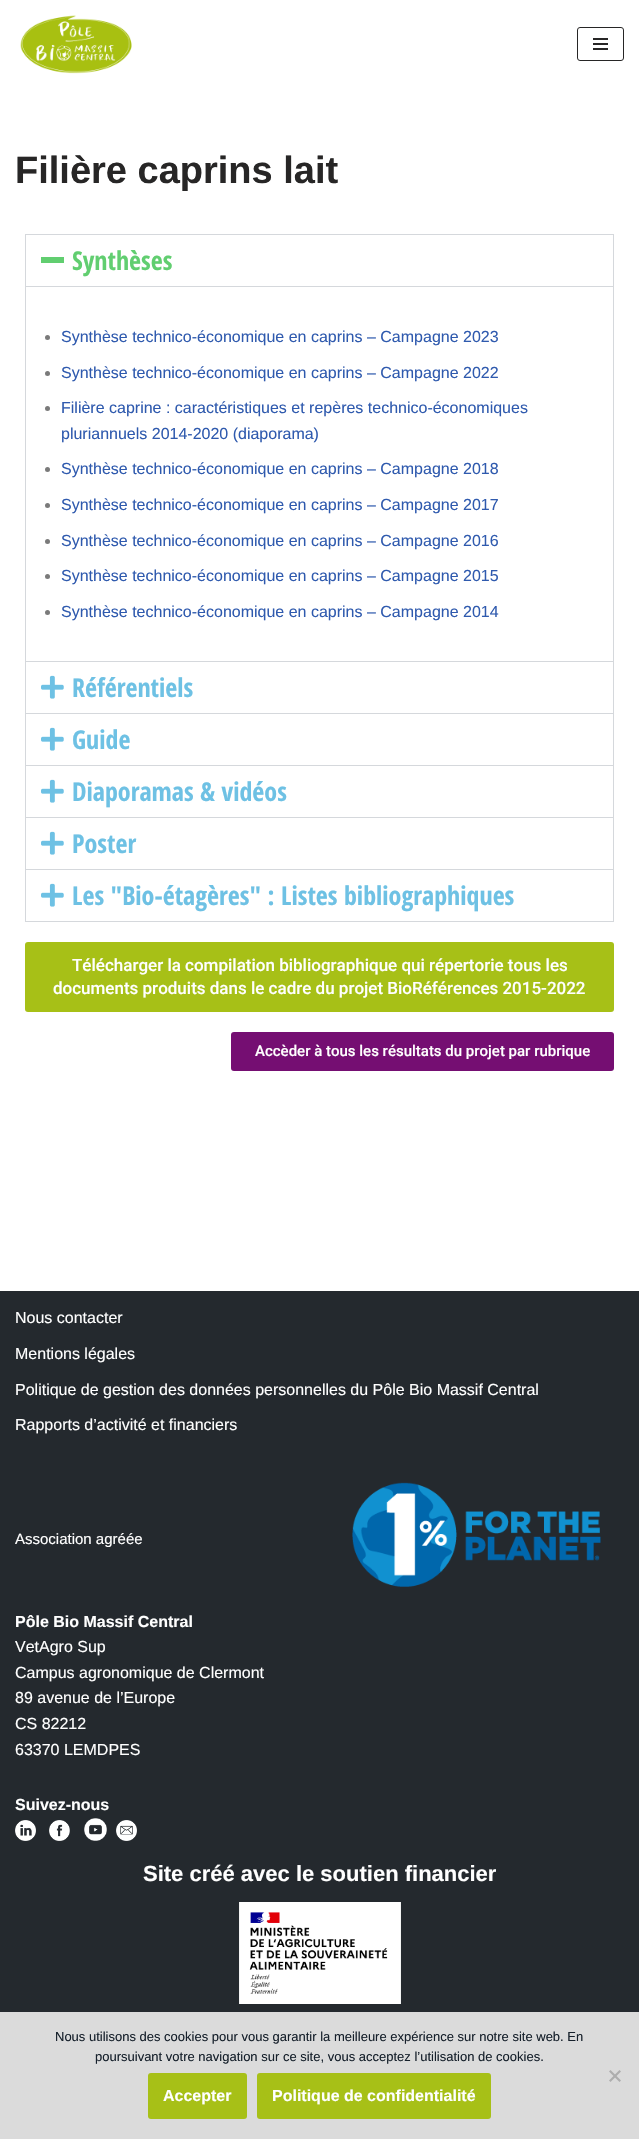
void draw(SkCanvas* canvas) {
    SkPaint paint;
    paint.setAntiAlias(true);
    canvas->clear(0xFFFFFFFF);
    canvas->drawImageRect(SkImages::DeferredFromEncodedData(SkData::MakeFromFileName("img1.png")), SkRect::MakeXYWH(20, 15, 112, 59), SkSamplingOptions());
    paint.setStyle(SkPaint::kStroke_Style);
    paint.setStrokeWidth(1);
    paint.setColor(0xFF272626);
    canvas->drawRoundRect(SkRect::MakeXYWH(577.5f, 27.5f, 46, 33), 2.5f, 2.5f, paint);
    paint.setStyle(SkPaint::kFill_Style);
    canvas->drawRect(SkRect::MakeXYWH(593, 38, 15, 2), paint);
    canvas->drawRect(SkRect::MakeXYWH(593, 43, 15, 2), paint);
    canvas->drawRect(SkRect::MakeXYWH(593, 48, 15, 2), paint);
    SkFont font1(fontMgr->matchFamilyStyle("Liberation Sans", SkFontStyle::Bold()), 38);
    font1.setSubpixel(true);
    canvas->drawString("Filière caprins lait", 15, 183, font1, paint);
    paint.setStyle(SkPaint::kStroke_Style);
    paint.setColor(0xFFD5D8DC);
    canvas->drawRect(SkRect::MakeXYWH(25.5f, 234.5f, 588, 427), paint);
    paint.setStyle(SkPaint::kFill_Style);
    paint.setColor(0xFF61CE70);
    canvas->drawRect(SkRect::MakeXYWH(41, 257, 23, 6), paint);
    SkFont font2(fontMgr->matchFamilyStyle("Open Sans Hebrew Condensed", SkFontStyle::Bold()), 26);
    font2.setSubpixel(true);
    canvas->drawString("Synthèses", 72, 270, font2, paint);
    paint.setColor(0xFFD5D8DC);
    canvas->drawRect(SkRect::MakeXYWH(26, 286, 587, 1), paint);
    paint.setColor(0xFF7A7A7A);
    canvas->drawCircle(47.5f, 337.5f, 2.5f, paint);
    SkFont font3(fontMgr->matchFamilyStyle("Liberation Sans", SkFontStyle::Normal()), 16);
    font3.setSubpixel(true);
    paint.setColor(0xFF2F5AAE);
    canvas->drawString("Synthèse technico-économique en caprins – Campagne 2023", 61, 342, font3, paint);
    paint.setColor(0xFF7A7A7A);
    canvas->drawCircle(47.5f, 373.5f, 2.5f, paint);
    paint.setColor(0xFF2F5AAE);
    canvas->drawString("Synthèse technico-économique en caprins – Campagne 2022", 61, 378, font3, paint);
    paint.setColor(0xFF7A7A7A);
    canvas->drawCircle(47.5f, 408.5f, 2.5f, paint);
    paint.setColor(0xFF2F5AAE);
    canvas->drawString("Filière caprine : caractéristiques et repères technico-économiques", 61, 413, font3, paint);
    canvas->drawString("pluriannuels 2014-2020 (diaporama)", 61, 439, font3, paint);
    paint.setColor(0xFF7A7A7A);
    canvas->drawCircle(47.5f, 469.5f, 2.5f, paint);
    paint.setColor(0xFF2F5AAE);
    canvas->drawString("Synthèse technico-économique en caprins – Campagne 2018", 61, 474, font3, paint);
    paint.setColor(0xFF7A7A7A);
    canvas->drawCircle(47.5f, 505.5f, 2.5f, paint);
    paint.setColor(0xFF2F5AAE);
    canvas->drawString("Synthèse technico-économique en caprins – Campagne 2017", 61, 510, font3, paint);
    paint.setColor(0xFF7A7A7A);
    canvas->drawCircle(47.5f, 541.5f, 2.5f, paint);
    paint.setColor(0xFF2F5AAE);
    canvas->drawString("Synthèse technico-économique en caprins – Campagne 2016", 61, 546, font3, paint);
    paint.setColor(0xFF7A7A7A);
    canvas->drawCircle(47.5f, 576.5f, 2.5f, paint);
    paint.setColor(0xFF2F5AAE);
    canvas->drawString("Synthèse technico-économique en caprins – Campagne 2015", 61, 581, font3, paint);
    paint.setColor(0xFF7A7A7A);
    canvas->drawCircle(47.5f, 612.5f, 2.5f, paint);
    paint.setColor(0xFF2F5AAE);
    canvas->drawString("Synthèse technico-économique en caprins – Campagne 2014", 61, 617, font3, paint);
    paint.setColor(0xFFD5D8DC);
    canvas->drawRect(SkRect::MakeXYWH(613, 662, 1, 260), paint);
    canvas->drawRect(SkRect::MakeXYWH(25, 713, 589, 1), paint);
    canvas->drawRect(SkRect::MakeXYWH(25, 662, 1, 52), paint);
    canvas->drawImageRect(SkImages::DeferredFromEncodedData(SkData::MakeFromFileName("img2.png")), SkRect::MakeXYWH(41, 675, 23, 24), SkSamplingOptions());
    paint.setColor(0xFF6EC1E4);
    canvas->drawString("Référentiels", 72, 697, font2, paint);
    paint.setColor(0xFFD5D8DC);
    canvas->drawRect(SkRect::MakeXYWH(25, 765, 589, 1), paint);
    canvas->drawRect(SkRect::MakeXYWH(25, 714, 1, 52), paint);
    canvas->drawImageRect(SkImages::DeferredFromEncodedData(SkData::MakeFromFileName("img2.png")), SkRect::MakeXYWH(41, 727, 23, 24), SkSamplingOptions());
    paint.setColor(0xFF6EC1E4);
    canvas->drawString("Guide", 72, 749, font2, paint);
    paint.setColor(0xFFD5D8DC);
    canvas->drawRect(SkRect::MakeXYWH(25, 817, 589, 1), paint);
    canvas->drawRect(SkRect::MakeXYWH(25, 766, 1, 52), paint);
    canvas->drawImageRect(SkImages::DeferredFromEncodedData(SkData::MakeFromFileName("img2.png")), SkRect::MakeXYWH(41, 779, 23, 24), SkSamplingOptions());
    paint.setColor(0xFF6EC1E4);
    canvas->drawString("Diaporamas & vidéos", 72, 801, font2, paint);
    paint.setColor(0xFFD5D8DC);
    canvas->drawRect(SkRect::MakeXYWH(25, 869, 589, 1), paint);
    canvas->drawRect(SkRect::MakeXYWH(25, 818, 1, 52), paint);
    canvas->drawImageRect(SkImages::DeferredFromEncodedData(SkData::MakeFromFileName("img2.png")), SkRect::MakeXYWH(41, 831, 23, 24), SkSamplingOptions());
    paint.setColor(0xFF6EC1E4);
    canvas->drawString("Poster", 72, 853, font2, paint);
    paint.setColor(0xFFD5D8DC);
    canvas->drawRect(SkRect::MakeXYWH(25, 921, 589, 1), paint);
    canvas->drawRect(SkRect::MakeXYWH(25, 870, 1, 52), paint);
    canvas->drawImageRect(SkImages::DeferredFromEncodedData(SkData::MakeFromFileName("img2.png")), SkRect::MakeXYWH(41, 883, 23, 24), SkSamplingOptions());
    paint.setColor(0xFF6EC1E4);
    canvas->drawString("Les \"Bio-étagères\" : Listes bibliographiques", 72, 905, font2, paint);
    paint.setColor(0xFFA7C017);
    canvas->drawRoundRect(SkRect::MakeXYWH(25, 942, 589, 70), 3, 3, paint);
    SkFont font4(fontMgr->matchFamilyStyle("Roboto", SkFontStyle(500, SkFontStyle::kNormal_Width, SkFontStyle::kUpright_Slant)), 17);
    font4.setSubpixel(true);
    paint.setColor(0xFFFFFFFF);
    canvas->drawString("Télécharger la compilation bibliographique qui répertorie tous les", 72, 971, font4, paint);
    canvas->drawString("documents produits dans le cadre du projet BioRéférences 2015-2022", 53, 994, font4, paint);
    paint.setColor(0xFF750E72);
    canvas->drawRoundRect(SkRect::MakeXYWH(231, 1032, 383, 39), 3, 3, paint);
    SkFont font5(fontMgr->matchFamilyStyle("Roboto", SkFontStyle(500, SkFontStyle::kNormal_Width, SkFontStyle::kUpright_Slant)), 15);
    font5.setSubpixel(true);
    paint.setColor(0xFFFFFFFF);
    canvas->drawString("Accèder à tous les résultats du projet par rubrique", 255, 1056, font5, paint);
    paint.setColor(0xFF24292E);
    canvas->drawRect(SkRect::MakeXYWH(0, 1291, 639, 721), paint);
    paint.setColor(0xFFFFFFFF);
    canvas->drawString("Nous contacter", 15, 1323, font3, paint);
    canvas->drawString("Mentions légales", 15, 1359, font3, paint);
    canvas->drawString("Politique de gestion des données personnelles du Pôle Bio Massif Central", 15, 1395, font3, paint);
    canvas->drawString("Rapports d’activité et financiers", 15, 1430, font3, paint);
    SkFont font6(fontMgr->matchFamilyStyle("Liberation Sans", SkFontStyle::Normal()), 15);
    font6.setSubpixel(true);
    canvas->drawString("Association agréée", 15, 1544, font6, paint);
    canvas->drawImageRect(SkImages::DeferredFromEncodedData(SkData::MakeFromFileName("img3.png")), SkRect::MakeXYWH(352, 1482, 249, 105), SkSamplingOptions());
    SkFont font7(fontMgr->matchFamilyStyle("Liberation Sans", SkFontStyle::Bold()), 16);
    font7.setSubpixel(true);
    canvas->drawString("Pôle Bio Massif Central", 15, 1627, font7, paint);
    canvas->drawString("VetAgro Sup", 15, 1652, font3, paint);
    canvas->drawString("Campus agronomique de Clermont", 15, 1678, font3, paint);
    canvas->drawString("89 avenue de l’Europe", 15, 1703, font3, paint);
    canvas->drawString("CS 82212", 15, 1729, font3, paint);
    canvas->drawString("63370 LEMDPES", 15, 1755, font3, paint);
    canvas->drawString("Suivez-nous", 15, 1810, font7, paint);
    canvas->drawImageRect(SkImages::DeferredFromEncodedData(SkData::MakeFromFileName("img4.png")), SkRect::MakeXYWH(15, 1820, 21, 21), SkSamplingOptions());
    canvas->drawImageRect(SkImages::DeferredFromEncodedData(SkData::MakeFromFileName("img5.png")), SkRect::MakeXYWH(49, 1820, 21, 21), SkSamplingOptions());
    canvas->drawImageRect(SkImages::DeferredFromEncodedData(SkData::MakeFromFileName("img6.png")), SkRect::MakeXYWH(84, 1818, 23, 23), SkSamplingOptions());
    canvas->drawImageRect(SkImages::DeferredFromEncodedData(SkData::MakeFromFileName("img7.png")), SkRect::MakeXYWH(116, 1820, 21, 21), SkSamplingOptions());
    SkFont font8(fontMgr->matchFamilyStyle("Liberation Sans", SkFontStyle::Bold()), 22);
    font8.setSubpixel(true);
    canvas->drawString("Site créé avec le soutien financier", 143, 1881, font8, paint);
    canvas->drawImageRect(SkImages::DeferredFromEncodedData(SkData::MakeFromFileName("img8.png")), SkRect::MakeXYWH(239, 1902, 162, 102), SkSamplingOptions());
    paint.setColor(0xFFDBDBDB);
    canvas->drawRect(SkRect::MakeXYWH(0, 2012, 639, 127), paint);
    SkFont font9(fontMgr->matchFamilyStyle("Liberation Sans", SkFontStyle::Normal()), 13);
    font9.setSubpixel(true);
    paint.setColor(0xFF16202B);
    canvas->drawString("Nous utilisons des cookies pour vous garantir la meilleure expérience sur notre site web. En", 55, 2041, font9, paint);
    canvas->drawString("poursuivant votre navigation sur ce site, vous acceptez l’utilisation de cookies.", 95, 2061, font9, paint);
    paint.setColor(0xFFAEAEAE);
    canvas->drawPath(SkPathBuilder().moveTo(619.5f, 2070).lineTo(621, 2071.5f).lineTo(610.5f, 2082).lineTo(609, 2080.5f).close().detach(), paint);
    canvas->drawPath(SkPathBuilder().moveTo(609, 2071.5f).lineTo(610.5f, 2070).lineTo(621, 2080.5f).lineTo(619.5f, 2082).close().detach(), paint);
    paint.setColor(0xFFA7C017);
    canvas->drawRoundRect(SkRect::MakeXYWH(148, 2073, 99, 46), 3, 3, paint);
    paint.setColor(0xFFFFFFFF);
    canvas->drawString("Accepter", 163, 2101, font7, paint);
    paint.setColor(0xFFA7C017);
    canvas->drawRoundRect(SkRect::MakeXYWH(257, 2073, 234, 46), 3, 3, paint);
    paint.setColor(0xFFFFFFFF);
    canvas->drawString("Politique de confidentialité", 272, 2101, font7, paint);
}
